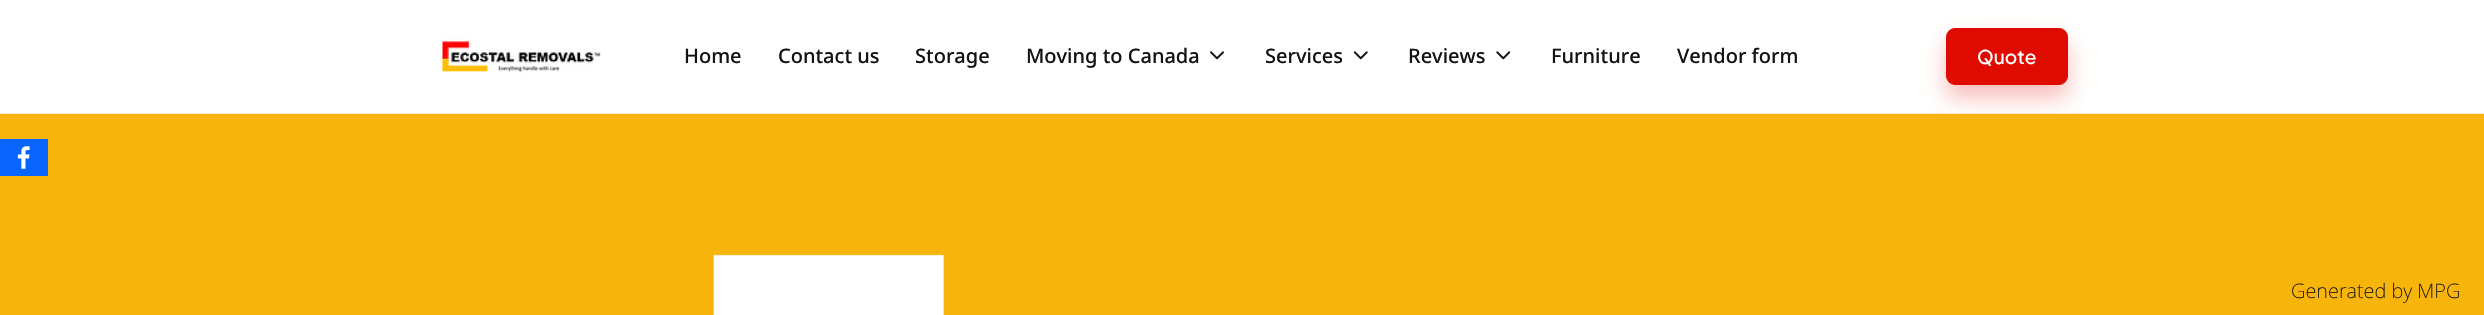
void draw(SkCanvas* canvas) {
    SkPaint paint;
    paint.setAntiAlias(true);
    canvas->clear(0xFFFFFFFF);
    canvas->drawImageRect(SkImages::DeferredFromEncodedData(SkData::MakeFromFileName("img1.png")), SkRect::MakeXYWH(441, 39, 160, 34), SkSamplingOptions());
    SkFont font1(fontMgr->matchFamilyStyle("Noto Sans", SkFontStyle(500, SkFontStyle::kNormal_Width, SkFontStyle::kUpright_Slant)), 20);
    font1.setSubpixel(true);
    paint.setColor(0xFF131315);
    canvas->drawString("Home", 684, 63, font1, paint);
    canvas->drawString("Contact us", 778, 63, font1, paint);
    canvas->drawString("Storage", 915, 63, font1, paint);
    canvas->drawString("Moving to Canada", 1026, 63, font1, paint);
    canvas->drawImageRect(SkImages::DeferredFromEncodedData(SkData::MakeFromFileName("img2.png")), SkRect::MakeXYWH(1210, 51, 14, 9), SkSamplingOptions());
    canvas->drawString("Services", 1265, 63, font1, paint);
    canvas->drawImageRect(SkImages::DeferredFromEncodedData(SkData::MakeFromFileName("img3.png")), SkRect::MakeXYWH(1353, 51, 15, 9), SkSamplingOptions());
    canvas->drawString("Reviews", 1408, 63, font1, paint);
    canvas->drawImageRect(SkImages::DeferredFromEncodedData(SkData::MakeFromFileName("img4.png")), SkRect::MakeXYWH(1496, 51, 15, 9), SkSamplingOptions());
    canvas->drawString("Furniture", 1551, 63, font1, paint);
    canvas->drawString("Vendor form", 1677, 63, font1, paint);
    paint.setColor(0xFFF7B40B);
    canvas->drawRect(SkRect::MakeXYWH(0, 114, 2484, 201), paint);
    paint.setColor(0xFFFFE7D2);
    canvas->drawRect(SkRect::MakeXYWH(0, 113, 2484, 1), paint);
    paint.setColor(0x45E00B00);
    paint.setMaskFilter(SkMaskFilter::MakeBlur(kNormal_SkBlurStyle, 11));
    canvas->drawRoundRect(SkRect::MakeXYWH(1946, 40, 122, 58), 9, 9, paint);
    paint.setMaskFilter(nullptr);
    paint.setColor(0xFFE00B00);
    canvas->drawRoundRect(SkRect::MakeXYWH(1946.5f, 28.5f, 121, 56), 8.5f, 8.5f, paint);
    paint.setStyle(SkPaint::kStroke_Style);
    paint.setStrokeWidth(1);
    canvas->drawRoundRect(SkRect::MakeXYWH(1946.5f, 28.5f, 121, 56), 8.5f, 8.5f, paint);
    SkFont font2(fontMgr->matchFamilyStyle("Plus Jakarta Sans", SkFontStyle(500, SkFontStyle::kNormal_Width, SkFontStyle::kUpright_Slant)), 19);
    font2.setSubpixel(true);
    paint.setStyle(SkPaint::kFill_Style);
    paint.setColor(0xFFFFFFFF);
    canvas->drawString("Quote", 1977, 64, font2, paint);
    canvas->drawImageRect(SkImages::DeferredFromEncodedData(SkData::MakeFromFileName("img5.png")), SkRect::MakeXYWH(713, 254, 231, 61), SkSamplingOptions());
    paint.setColor(0xFF0866FF);
    canvas->drawRect(SkRect::MakeXYWH(0, 139, 48, 37), paint);
    canvas->drawImageRect(SkImages::DeferredFromEncodedData(SkData::MakeFromFileName("img6.png")), SkRect::MakeXYWH(17, 146, 13, 23), SkSamplingOptions());
    SkFont font3(fontMgr->matchFamilyStyle("Noto Sans", SkFontStyle(200, SkFontStyle::kNormal_Width, SkFontStyle::kUpright_Slant)), 20);
    font3.setSubpixel(true);
    paint.setColor(0xFF131315);
    canvas->drawString("Generated by MPG", 2291, 298, font3, paint);
}
